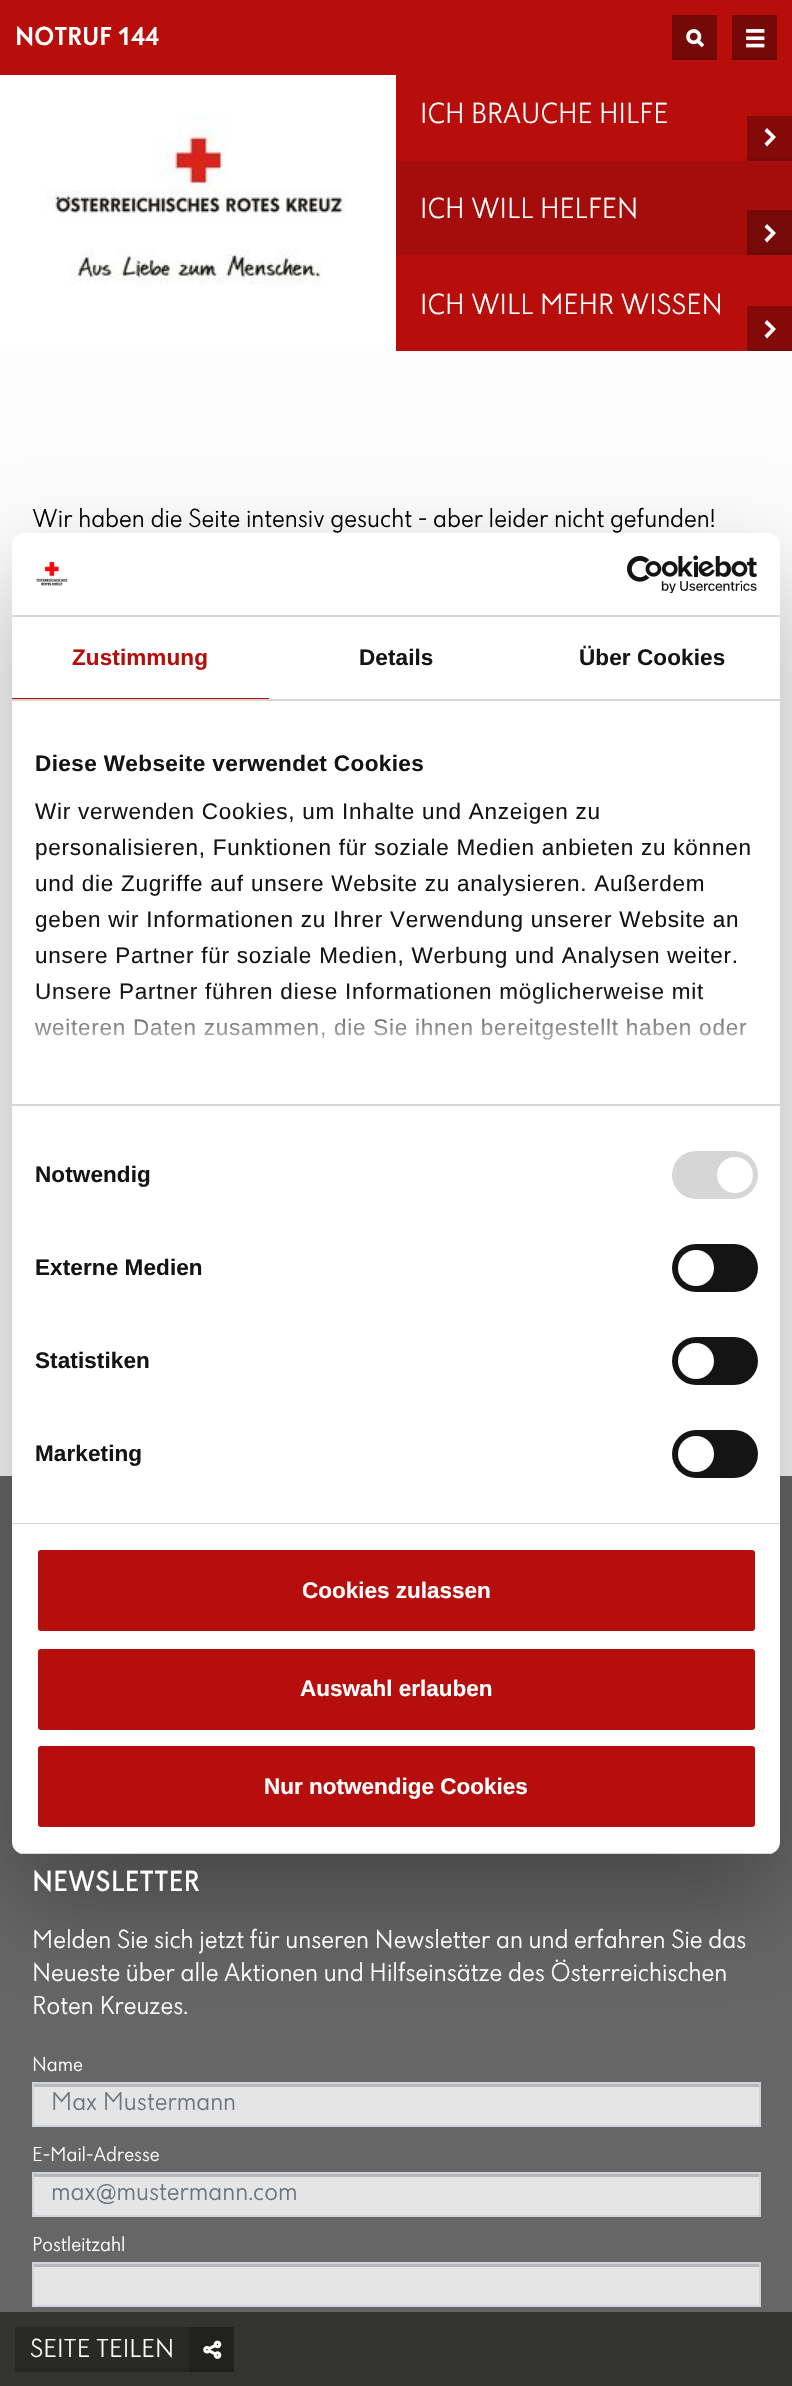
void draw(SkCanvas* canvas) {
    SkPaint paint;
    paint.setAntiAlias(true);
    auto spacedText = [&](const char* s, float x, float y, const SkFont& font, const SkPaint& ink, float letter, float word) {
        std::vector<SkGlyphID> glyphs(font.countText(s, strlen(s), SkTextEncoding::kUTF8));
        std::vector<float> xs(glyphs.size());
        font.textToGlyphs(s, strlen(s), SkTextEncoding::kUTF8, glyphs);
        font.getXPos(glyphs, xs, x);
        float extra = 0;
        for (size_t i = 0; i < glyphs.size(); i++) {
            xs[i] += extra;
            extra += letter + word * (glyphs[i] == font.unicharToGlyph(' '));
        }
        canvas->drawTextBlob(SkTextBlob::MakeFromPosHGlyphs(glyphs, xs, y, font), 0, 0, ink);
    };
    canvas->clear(0xFFFCFCFC);
    paint.setColor(0xFFB70E0C);
    canvas->drawRect(SkRect::MakeXYWH(0, 0, 792, 75), paint);
    SkFont font1(fontMgr->matchFamilyStyle("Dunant", SkFontStyle(500, SkFontStyle::kNormal_Width, SkFontStyle::kUpright_Slant)), 27);
    font1.setSubpixel(true);
    paint.setColor(0xFFFFFFFF);
    canvas->drawString("NOTRUF 144", 15, 45, font1, paint);
    paint.setColor(0xFF750908);
    canvas->drawRect(SkRect::MakeXYWH(672, 15, 45, 42), paint);
    paint.setColor(0xFF690807);
    canvas->drawRect(SkRect::MakeXYWH(672, 57, 45, 3), paint);
    canvas->drawImageRect(SkImages::DeferredFromEncodedData(SkData::MakeFromFileName("img1.png")), SkRect::MakeXYWH(686, 29, 19, 19), SkSamplingOptions());
    paint.setColor(0xFF750908);
    canvas->drawRect(SkRect::MakeXYWH(732, 15, 45, 42), paint);
    paint.setColor(0xFF690807);
    canvas->drawRect(SkRect::MakeXYWH(732, 57, 45, 3), paint);
    canvas->drawImageRect(SkImages::DeferredFromEncodedData(SkData::MakeFromFileName("img2.png")), SkRect::MakeXYWH(746, 29, 19, 19), SkSamplingOptions());
    paint.setColor(0xFFFFFFFF);
    canvas->drawRect(SkRect::MakeXYWH(0, 75, 396, 276), paint);
    canvas->drawImageRect(SkImages::DeferredFromEncodedData(SkData::MakeFromFileName("img3.png")), SkRect::MakeXYWH(47, 116, 299, 169), SkSamplingOptions());
    paint.setColor(0xFFB70E0C);
    canvas->drawRect(SkRect::MakeXYWH(396, 75, 396, 86), paint);
    SkFont font2(fontMgr->matchFamilyStyle("Dunant", SkFontStyle(300, SkFontStyle::kNormal_Width, SkFontStyle::kUpright_Slant)), 30);
    font2.setSubpixel(true);
    paint.setColor(0xFFFFFFFF);
    canvas->drawString("ICH BRAUCHE HILFE", 420, 123, font2, paint);
    paint.setColor(0xFF840A09);
    canvas->drawRect(SkRect::MakeXYWH(747, 116, 45, 42), paint);
    paint.setColor(0xFF770A08);
    canvas->drawRect(SkRect::MakeXYWH(747, 158, 45, 3), paint);
    paint.setColor(0xFFFFFFFF);
    canvas->drawPath(SkPathBuilder().moveTo(767, 128).lineTo(764.5f, 131).lineTo(771, 137).lineTo(764.5f, 143.5f).lineTo(767, 146.5f).lineTo(776, 137).close().detach(), paint);
    paint.setColor(0xFFA40D0B);
    canvas->drawRect(SkRect::MakeXYWH(396, 161, 396, 94), paint);
    paint.setColor(0xFFFFFFFF);
    canvas->drawString("ICH WILL HELFEN", 420, 218, font2, paint);
    paint.setColor(0xFF760A08);
    canvas->drawRect(SkRect::MakeXYWH(747, 210, 45, 42), paint);
    paint.setColor(0xFF6A0907);
    canvas->drawRect(SkRect::MakeXYWH(747, 252, 45, 3), paint);
    paint.setColor(0xFFFFFFFF);
    canvas->drawPath(SkPathBuilder().moveTo(767, 224).lineTo(764.5f, 227).lineTo(771, 233).lineTo(764.5f, 239.5f).lineTo(767, 242.5f).lineTo(776, 233).close().detach(), paint);
    paint.setColor(0xFFB70E0C);
    canvas->drawRect(SkRect::MakeXYWH(396, 255, 396, 96), paint);
    paint.setColor(0xFFFFFFFF);
    canvas->drawString("ICH WILL MEHR WISSEN", 420, 314, font2, paint);
    paint.setColor(0xFF840A09);
    canvas->drawRect(SkRect::MakeXYWH(747, 306, 45, 42), paint);
    paint.setColor(0xFF770A08);
    canvas->drawRect(SkRect::MakeXYWH(747, 348, 45, 3), paint);
    paint.setColor(0xFFFFFFFF);
    canvas->drawPath(SkPathBuilder().moveTo(767, 320).lineTo(764.5f, 323).lineTo(771, 329).lineTo(764.5f, 335.5f).lineTo(767, 338.5f).lineTo(776, 329).close().detach(), paint);
    SkFont font3(fontMgr->matchFamilyStyle("Dunant", SkFontStyle(300, SkFontStyle::kNormal_Width, SkFontStyle::kUpright_Slant)), 27);
    font3.setSubpixel(true);
    paint.setColor(0xFF000000);
    canvas->drawString("Wir haben die Seite intensiv gesucht - aber leider nicht gefunden!", 32, 527, font3, paint);
    paint.setColor(0xFF666666);
    canvas->drawRect(SkRect::MakeXYWH(0, 1476, 792, 836), paint);
    paint.setColor(0x4D000000);
    paint.setMaskFilter(SkMaskFilter::MakeBlur(kNormal_SkBlurStyle, 51));
    canvas->drawRoundRect(SkRect::MakeXYWH(12, 581, 768, 1321), 12, 12, paint);
    paint.setMaskFilter(nullptr);
    paint.setColor(0xFFFFFFFF);
    canvas->drawRoundRect(SkRect::MakeXYWH(12, 533, 768, 1321), 12, 12, paint);
    paint.setColor(0xFFD6D6D6);
    canvas->drawRect(SkRect::MakeXYWH(12, 615, 768, 2), paint);
    canvas->drawImageRect(SkImages::DeferredFromEncodedData(SkData::MakeFromFileName("img4.png")), SkRect::MakeXYWH(36, 561, 32, 25), SkSamplingOptions());
    canvas->drawImageRect(SkImages::DeferredFromEncodedData(SkData::MakeFromFileName("img5.png")), SkRect::MakeXYWH(627, 555, 130, 38), SkSamplingOptions());
    canvas->drawRect(SkRect::MakeXYWH(12, 699, 768, 2), paint);
    paint.setColor(0xFFB60E0C);
    canvas->drawRect(SkRect::MakeXYWH(12, 698, 257, 1), paint);
    SkFont font4(fontMgr->matchFamilyStyle("Liberation Sans", SkFontStyle::Bold()), 22.5f);
    font4.setSubpixel(true);
    spacedText("Zustimmung", 72, 665, font4, paint, 0.1f, 0);
    paint.setColor(0xFF141414);
    spacedText("Details", 359, 665, font4, paint, 0.1f, 0);
    spacedText("Über Cookies", 579, 665, font4, paint, 0.1f, 0);
    paint.setColor(0xFFD6D6D6);
    canvas->drawRect(SkRect::MakeXYWH(12, 1104, 768, 2), paint);
    paint.setColor(0xFF141414);
    spacedText("Diese Webseite verwendet Cookies", 35, 771, font4, paint, 0.4f, 0);
    SkFont font5(fontMgr->matchFamilyStyle("Liberation Sans", SkFontStyle::Normal()), 22.5f);
    font5.setSubpixel(true);
    spacedText("Wir verwenden Cookies, um Inhalte und Anzeigen zu", 35, 819, font5, paint, 0.75f, 0);
    spacedText("personalisieren, Funktionen für soziale Medien anbieten zu können", 35, 855, font5, paint, 0.75f, 0);
    spacedText("und die Zugriffe auf unsere Website zu analysieren. Außerdem", 35, 891, font5, paint, 0.75f, 0);
    spacedText("geben wir Informationen zu Ihrer Verwendung unserer Website an", 35, 927, font5, paint, 0.75f, 0);
    spacedText("unsere Partner für soziale Medien, Werbung und Analysen weiter.", 35, 963, font5, paint, 0.75f, 0);
    spacedText("Unsere Partner führen diese Informationen möglicherweise mit", 35, 999, font5, paint, 0.75f, 0);
    spacedText("weiteren Daten zusammen, die Sie ihnen bereitgestellt haben oder", 35, 1035, font5, paint, 0.75f, 0);
    {
        const SkColor colors[] = {0xFFFFFFFF, 0xCCFFFFFF, 0x00FFFFFF};
        const float stops[] = {0, 0.5f, 1};
        const SkPoint ends[] = {{386, 1104}, {386, 992}};
        paint.setShader(SkGradientShader::MakeLinear(ends, colors, stops, 3, SkTileMode::kClamp));
        paint.setAlpha(255);
    }
    canvas->drawRect(SkRect::MakeXYWH(34, 994, 712, 46), paint);
    paint.setShader(nullptr);
    paint.setColor(0xFFD6D6D6);
    canvas->drawRect(SkRect::MakeXYWH(12, 1523, 768, 1), paint);
    paint.setColor(0xFF141414);
    spacedText("Notwendig", 35, 1182, font4, paint, 0.1f, 0);
    paint.setColor(0xFFD6D6D6);
    canvas->drawRoundRect(SkRect::MakeXYWH(672, 1151, 86, 48), 24, 24, paint);
    paint.setColor(0xFFFFFFFF);
    canvas->drawCircle(735, 1175, 18, paint);
    paint.setColor(0xFF141414);
    spacedText("Externe Medien", 35, 1275, font4, paint, 0.1f, 0);
    canvas->drawRoundRect(SkRect::MakeXYWH(672, 1244, 86, 48), 24, 24, paint);
    paint.setColor(0xFFFFFFFF);
    canvas->drawCircle(696, 1268, 18, paint);
    paint.setColor(0xFF141414);
    spacedText("Statistiken", 35, 1368, font4, paint, 0.1f, 0);
    canvas->drawRoundRect(SkRect::MakeXYWH(672, 1337, 86, 48), 24, 24, paint);
    paint.setColor(0xFFFFFFFF);
    canvas->drawCircle(696, 1361, 18, paint);
    paint.setColor(0xFF141414);
    spacedText("Marketing", 35, 1461, font4, paint, 0.1f, 0);
    canvas->drawRoundRect(SkRect::MakeXYWH(672, 1430, 86, 48), 24, 24, paint);
    paint.setColor(0xFFFFFFFF);
    canvas->drawCircle(696, 1454, 18, paint);
    canvas->save();
    canvas->clipPath(SkPathBuilder().moveTo(24, 533).lineTo(768, 533).cubicTo(774.5f, 533, 780, 538.5f, 780, 545).lineTo(780, 1842).cubicTo(780, 1848.5f, 774.5f, 1854, 768, 1854).lineTo(24, 1854).cubicTo(17.5f, 1854, 12, 1848.5f, 12, 1842).lineTo(12, 545).cubicTo(12, 538.5f, 17.5f, 533, 24, 533).close().detach(), true);
    paint.setColor(0xFFD6D6D6);
    canvas->drawRect(SkRect::MakeXYWH(12, 1853, 768, 1), paint);
    canvas->restore();
    paint.setColor(0xFFB60E0C);
    canvas->drawRoundRect(SkRect::MakeXYWH(36.5f, 1548.5f, 720, 84), 4.5f, 4.5f, paint);
    paint.setStyle(SkPaint::kStroke_Style);
    paint.setStrokeWidth(3);
    paint.setColor(0xFFFFFFFF);
    canvas->drawRoundRect(SkRect::MakeXYWH(36.5f, 1548.5f, 720, 84), 4.5f, 4.5f, paint);
    paint.setStyle(SkPaint::kFill_Style);
    canvas->drawString("Cookies zulassen", 302, 1598, font4, paint);
    paint.setColor(0xFFB60E0C);
    canvas->drawRoundRect(SkRect::MakeXYWH(36.5f, 1647.5f, 720, 84), 4.5f, 4.5f, paint);
    paint.setStyle(SkPaint::kStroke_Style);
    paint.setColor(0xFFFFFFFF);
    canvas->drawRoundRect(SkRect::MakeXYWH(36.5f, 1647.5f, 720, 84), 4.5f, 4.5f, paint);
    paint.setStyle(SkPaint::kFill_Style);
    canvas->drawString("Auswahl erlauben", 300, 1696, font4, paint);
    paint.setColor(0xFFB60E0C);
    canvas->drawRoundRect(SkRect::MakeXYWH(36.5f, 1744.5f, 720, 84), 4.5f, 4.5f, paint);
    paint.setStyle(SkPaint::kStroke_Style);
    paint.setColor(0xFFFFFFFF);
    canvas->drawRoundRect(SkRect::MakeXYWH(36.5f, 1744.5f, 720, 84), 4.5f, 4.5f, paint);
    paint.setStyle(SkPaint::kFill_Style);
    canvas->drawString("Nur notwendige Cookies", 264, 1794, font4, paint);
    SkFont font6(fontMgr->matchFamilyStyle("Dunant", SkFontStyle::Normal()), 30);
    font6.setSubpixel(true);
    canvas->drawString("NEWSLETTER", 32, 1891, font6, paint);
    canvas->drawString("Melden Sie sich jetzt für unseren Newsletter an und erfahren Sie das", 32, 1948, font3, paint);
    canvas->drawString("Neueste über alle Aktionen und Hilfseinsätze des Österreichischen", 32, 1981, font3, paint);
    canvas->drawString("Roten Kreuzes.", 32, 2014, font3, paint);
    SkFont font7(fontMgr->matchFamilyStyle("Dunant", SkFontStyle(300, SkFontStyle::kNormal_Width, SkFontStyle::kUpright_Slant)), 21);
    font7.setSubpixel(true);
    canvas->drawString("Name", 32, 2071, font7, paint);
    paint.setColor(0xFFE5E5E5);
    canvas->drawRect(SkRect::MakeXYWH(34, 2087, 725, 38), paint);
    paint.setColor(0xFFB7B7B7);
    canvas->drawRect(SkRect::MakeXYWH(33, 2084, 726, 3), paint);
    paint.setStyle(SkPaint::kStroke_Style);
    paint.setStrokeWidth(2);
    paint.setColor(0xFFCED4DA);
    canvas->drawRect(SkRect::MakeXYWH(33, 2083, 727, 43), paint);
    paint.setStyle(SkPaint::kFill_Style);
    paint.setColor(0xFF6C757D);
    canvas->drawString("Max Mustermann", 51, 2110, font3, paint);
    paint.setColor(0xFFFFFFFF);
    canvas->drawString("E-Mail-Adresse", 32, 2161, font7, paint);
    paint.setColor(0xFFE5E5E5);
    canvas->drawRect(SkRect::MakeXYWH(34, 2177, 725, 38), paint);
    paint.setColor(0xFFB7B7B7);
    canvas->drawRect(SkRect::MakeXYWH(33, 2174, 726, 3), paint);
    paint.setStyle(SkPaint::kStroke_Style);
    paint.setColor(0xFFCED4DA);
    canvas->drawRect(SkRect::MakeXYWH(33, 2173, 727, 43), paint);
    paint.setStyle(SkPaint::kFill_Style);
    paint.setColor(0xFF6C757D);
    canvas->drawString("max@mustermann.com", 51, 2200, font3, paint);
    paint.setColor(0xFFFFFFFF);
    canvas->drawString("Postleitzahl", 32, 2251, font7, paint);
    paint.setColor(0xFFE5E5E5);
    canvas->drawRect(SkRect::MakeXYWH(34, 2267, 725, 38), paint);
    paint.setColor(0xFFB7B7B7);
    canvas->drawRect(SkRect::MakeXYWH(33, 2264, 726, 3), paint);
    paint.setStyle(SkPaint::kStroke_Style);
    paint.setColor(0xFFCED4DA);
    canvas->drawRect(SkRect::MakeXYWH(33, 2263, 727, 43), paint);
    paint.setStyle(SkPaint::kFill_Style);
    paint.setColor(0xFF333330);
    canvas->drawRect(SkRect::MakeXYWH(0, 2312, 792, 74), paint);
    paint.setColor(0xFF292926);
    canvas->drawRect(SkRect::MakeXYWH(15, 2327, 174, 42), paint);
    paint.setColor(0xFF21211E);
    canvas->drawRect(SkRect::MakeXYWH(189, 2327, 45, 42), paint);
    paint.setColor(0xFF252522);
    canvas->drawRect(SkRect::MakeXYWH(15, 2369, 174, 3), paint);
    paint.setColor(0xFF1E1E1B);
    canvas->drawRect(SkRect::MakeXYWH(189, 2369, 45, 3), paint);
    paint.setColor(0xFFFFFFFF);
    canvas->drawString("SEITE TEILEN", 30, 2357, font3, paint);
    canvas->drawImageRect(SkImages::DeferredFromEncodedData(SkData::MakeFromFileName("img6.png")), SkRect::MakeXYWH(203, 2340, 19, 19), SkSamplingOptions());
}
